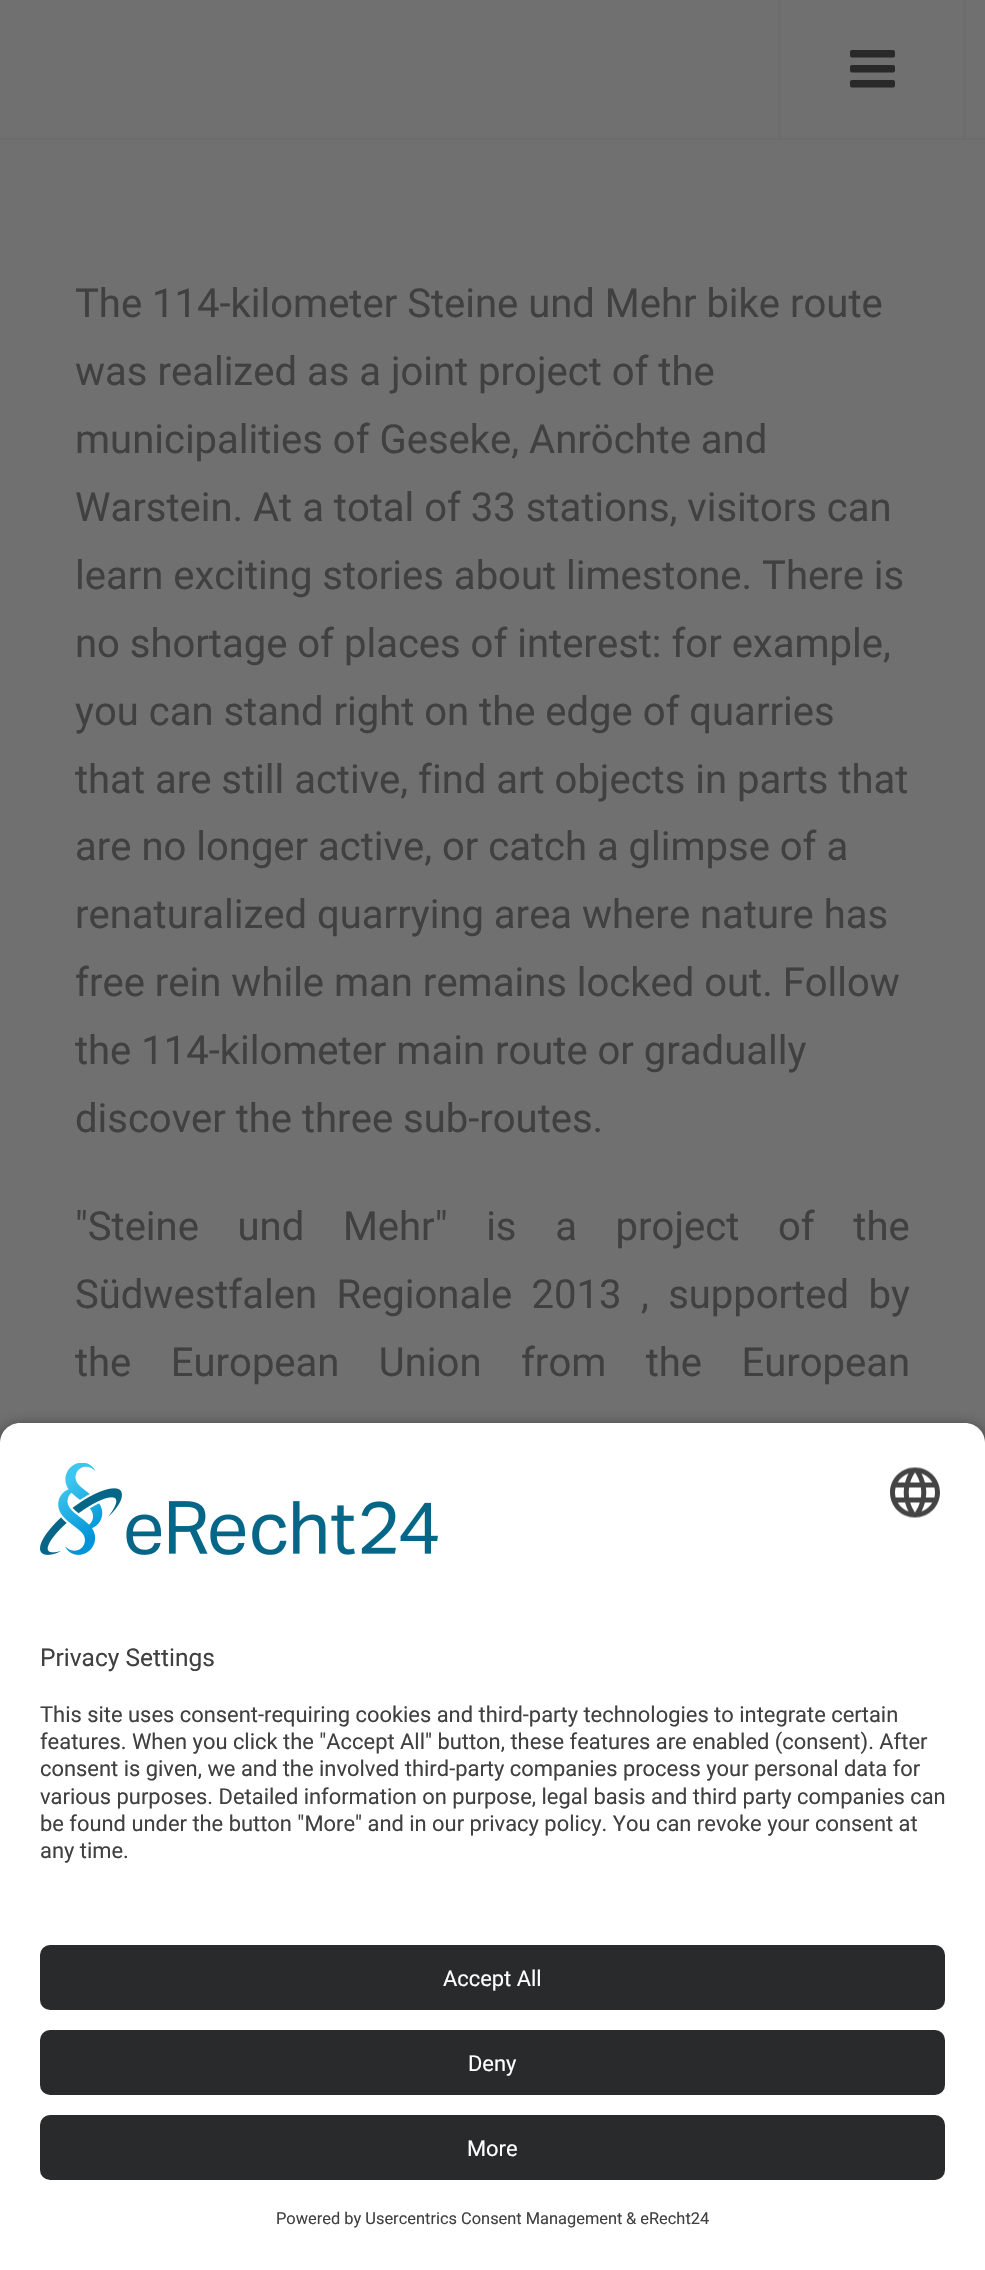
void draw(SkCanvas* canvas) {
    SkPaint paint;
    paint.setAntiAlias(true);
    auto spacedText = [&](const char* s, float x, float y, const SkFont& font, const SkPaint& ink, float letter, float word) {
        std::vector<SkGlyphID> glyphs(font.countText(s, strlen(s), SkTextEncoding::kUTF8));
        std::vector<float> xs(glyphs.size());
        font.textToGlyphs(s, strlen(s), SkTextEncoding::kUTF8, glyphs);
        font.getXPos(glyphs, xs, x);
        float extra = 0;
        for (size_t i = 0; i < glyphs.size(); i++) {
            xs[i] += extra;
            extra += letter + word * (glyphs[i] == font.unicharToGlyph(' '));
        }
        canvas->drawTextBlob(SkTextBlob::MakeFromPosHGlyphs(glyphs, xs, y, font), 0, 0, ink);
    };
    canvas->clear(0xFF707070);
    paint.setColor(0xFF6C6C6C);
    canvas->drawRect(SkRect::MakeXYWH(0, 138, 985, 2), paint);
    canvas->drawRect(SkRect::MakeXYWH(963, 0, 3, 138), paint);
    canvas->drawRect(SkRect::MakeXYWH(778, 0, 3, 138), paint);
    canvas->drawImageRect(SkImages::DeferredFromEncodedData(SkData::MakeFromFileName("img1.png")), SkRect::MakeXYWH(850, 50, 45, 38), SkSamplingOptions());
    SkFont font1(fontMgr->matchFamilyStyle("Roboto", SkFontStyle::Normal()), 40);
    font1.setSubpixel(true);
    paint.setColor(0xFF404040);
    canvas->drawString("The 114-kilometer Steine und Mehr bike route", 75, 317, font1, paint);
    canvas->drawString("was realized as a joint project of the", 75, 385, font1, paint);
    canvas->drawString("municipalities of Geseke, Anröchte and", 75, 453, font1, paint);
    canvas->drawString("Warstein. At a total of 33 stations, visitors can", 75, 521, font1, paint);
    canvas->drawString("learn exciting stories about limestone. There is", 75, 589, font1, paint);
    canvas->drawString("no shortage of places of interest: for example,", 75, 657, font1, paint);
    canvas->drawString("you can stand right on the edge of quarries", 75, 725, font1, paint);
    canvas->drawString("that are still active, find art objects in parts that", 75, 793, font1, paint);
    canvas->drawString("are no longer active, or catch a glimpse of a", 75, 860, font1, paint);
    canvas->drawString("renaturalized quarrying area where nature has", 75, 928, font1, paint);
    canvas->drawString("free rein while man remains locked out. Follow", 75, 996, font1, paint);
    canvas->drawString("the 114-kilometer main route or gradually", 75, 1064, font1, paint);
    canvas->drawString("discover the three sub-routes.", 75, 1132, font1, paint);
    spacedText("\"Steine und Mehr\" is a project of the", 75, 1240, font1, paint, 0, 28.75f);
    spacedText("Südwestfalen Regionale 2013 , supported by", 75, 1308, font1, paint, 0, 9.5f);
    spacedText("the European Union from the European", 75, 1376, font1, paint, 0, 29.5f);
    paint.setColor(0xCC000000);
    paint.setMaskFilter(SkMaskFilter::MakeBlur(kNormal_SkBlurStyle, 9));
    canvas->drawRoundRect(SkRect::MakeXYWH(0, 1430, 985, 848), 20, 20, paint);
    paint.setMaskFilter(nullptr);
    paint.setColor(0xFFFFFFFF);
    canvas->drawPath(SkPathBuilder().moveTo(20, 1423).lineTo(965, 1423).cubicTo(976, 1423, 985, 1432, 985, 1443).lineTo(985, 1915).lineTo(0, 1915).lineTo(0, 1443).cubicTo(0, 1432, 9, 1423, 20, 1423).close().detach(), paint);
    canvas->drawImageRect(SkImages::DeferredFromEncodedData(SkData::MakeFromFileName("img2.png")), SkRect::MakeXYWH(40, 1463, 398, 92), SkSamplingOptions());
    canvas->drawImageRect(SkImages::DeferredFromEncodedData(SkData::MakeFromFileName("img3.png")), SkRect::MakeXYWH(890, 1467, 50, 51), SkSamplingOptions());
    SkFont font2(fontMgr->matchFamilyStyle("Roboto", SkFontStyle::Normal()), 24.5f);
    font2.setSubpixel(true);
    paint.setColor(0xFF404040);
    canvas->drawString("Privacy Settings", 40, 1666, font2, paint);
    SkFont font3(fontMgr->matchFamilyStyle("Roboto", SkFontStyle::Normal()), 21.9f);
    font3.setSubpixel(true);
    canvas->drawString("This site uses consent-requiring cookies and third-party technologies to integrate certain", 40, 1722, font3, paint);
    canvas->drawString("features. When you click the \"Accept All\" button, these features are enabled (consent). After", 40, 1749, font3, paint);
    canvas->drawString("consent is given, we and the involved third-party companies process your personal data for", 40, 1776, font3, paint);
    canvas->drawString("various purposes. Detailed information on purpose, legal basis and third party companies can", 40, 1804, font3, paint);
    canvas->drawString("be found under the button \"More\" and in our privacy policy. You can revoke your consent at", 40, 1831, font3, paint);
    canvas->drawString("any time.", 40, 1858, font3, paint);
    paint.setColor(0xFFFFFFFF);
    canvas->drawRect(SkRect::MakeXYWH(0, 1915, 985, 355), paint);
    paint.setColor(0xFF292A2B);
    canvas->drawRoundRect(SkRect::MakeXYWH(40, 1945, 905, 65), 10, 10, paint);
    paint.setColor(0xFFFFFFFF);
    canvas->drawString("Accept All", 443, 1986, font3, paint);
    paint.setColor(0xFF292A2B);
    canvas->drawRoundRect(SkRect::MakeXYWH(40, 2030, 905, 65), 10, 10, paint);
    paint.setColor(0xFFFFFFFF);
    canvas->drawString("Deny", 468, 2071, font3, paint);
    paint.setColor(0xFF292A2B);
    canvas->drawRoundRect(SkRect::MakeXYWH(40, 2115, 905, 65), 10, 10, paint);
    paint.setColor(0xFFFFFFFF);
    canvas->drawString("More", 467, 2156, font3, paint);
    SkFont font4(fontMgr->matchFamilyStyle("Roboto", SkFontStyle::Normal()), 16.4f);
    font4.setSubpixel(true);
    paint.setColor(0xFF404040);
    canvas->drawString("Powered by Usercentrics Consent Management", 276, 2224, font4, paint);
    canvas->drawString("& eRecht24", 626, 2224, font4, paint);
}
